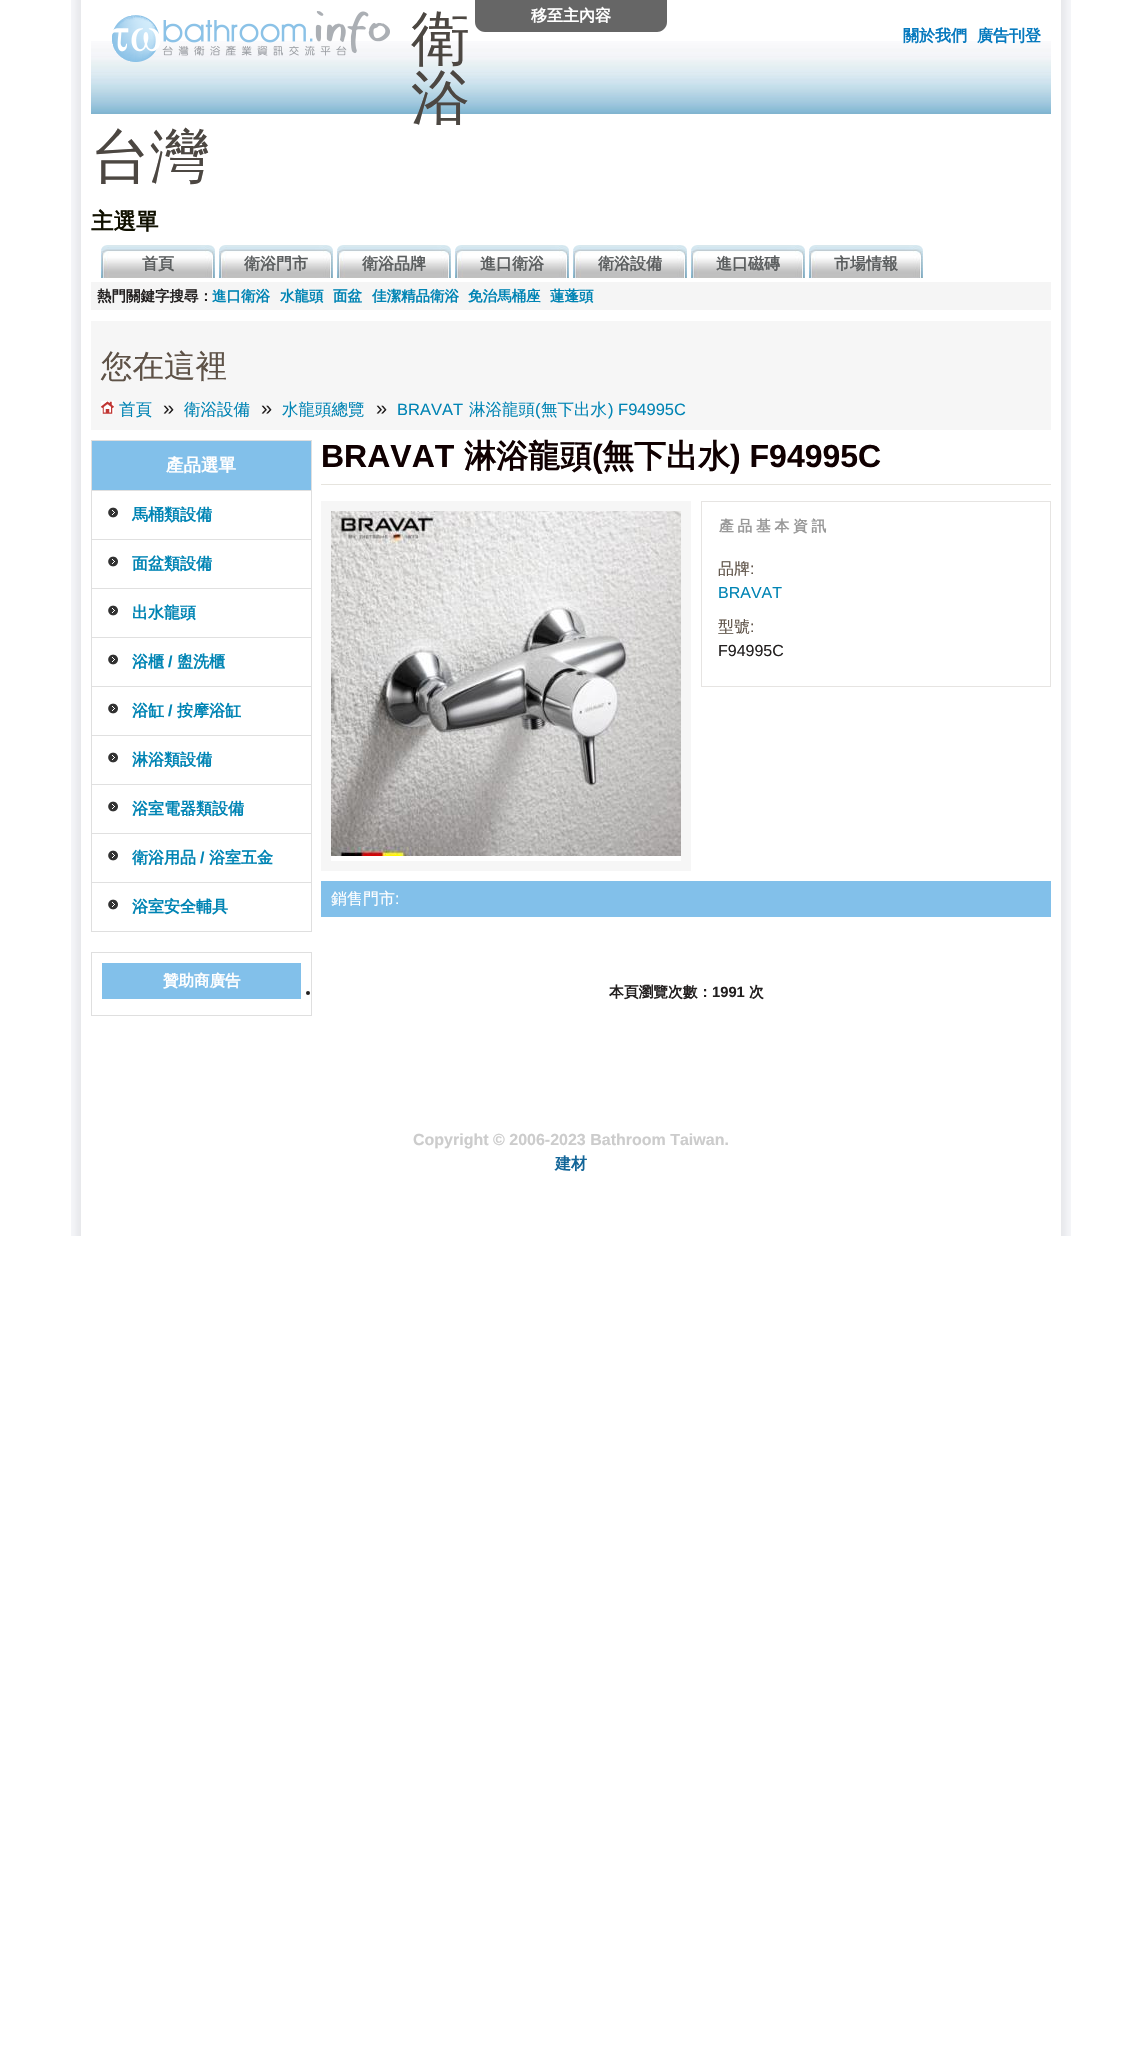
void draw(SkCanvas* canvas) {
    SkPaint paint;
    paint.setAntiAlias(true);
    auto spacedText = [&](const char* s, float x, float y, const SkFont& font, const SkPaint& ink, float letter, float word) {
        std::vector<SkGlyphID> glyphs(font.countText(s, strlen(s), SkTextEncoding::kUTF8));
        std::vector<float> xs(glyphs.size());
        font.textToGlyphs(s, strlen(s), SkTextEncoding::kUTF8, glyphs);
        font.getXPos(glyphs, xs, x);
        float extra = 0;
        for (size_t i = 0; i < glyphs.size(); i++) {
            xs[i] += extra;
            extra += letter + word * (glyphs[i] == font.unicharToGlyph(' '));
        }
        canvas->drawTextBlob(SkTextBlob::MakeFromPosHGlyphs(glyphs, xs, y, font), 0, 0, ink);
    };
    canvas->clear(0xFFFFFFFF);
    canvas->drawImageRect(SkImages::DeferredFromEncodedData(SkData::MakeFromFileName("img1.png")), SkRect::MakeXYWH(71, 0, 1000, 1236), SkSamplingOptions());
    paint.setColor(0xFF666666);
    canvas->drawPath(SkPathBuilder().moveTo(475, 0).lineTo(667, 0).lineTo(667, 22).cubicTo(667, 27.5f, 662.5f, 32, 657, 32).lineTo(485, 32).cubicTo(479.5f, 32, 475, 27.5f, 475, 22).close().detach(), paint);
    SkFont font1(fontMgr->matchFamilyStyle("WenQuanYi Zen Hei", SkFontStyle::Bold()), 16);
    font1.setSubpixel(true);
    paint.setColor(0xFFFFFFFF);
    canvas->drawString("移至主內容", 531, 21, font1, paint);
    canvas->drawImageRect(SkImages::DeferredFromEncodedData(SkData::MakeFromFileName("img2.png")), SkRect::MakeXYWH(91, 41, 960, 73), SkSamplingOptions());
    SkFont font2(fontMgr->matchFamilyStyle("WenQuanYi Zen Hei", SkFontStyle(500, SkFontStyle::kNormal_Width, SkFontStyle::kUpright_Slant)), 59);
    font2.setSubpixel(true);
    paint.setColor(0xFF4C4742);
    canvas->drawString("衛", 411, 59, font2, paint);
    canvas->drawString("浴", 411, 118, font2, paint);
    canvas->drawString("台灣", 91, 177, font2, paint);
    canvas->drawImageRect(SkImages::DeferredFromEncodedData(SkData::MakeFromFileName("img3.png")), SkRect::MakeXYWH(112, 11, 278, 51), SkSamplingOptions());
    paint.setColor(0xFF0679BE);
    canvas->drawString("關於我們", 903, 41, font1, paint);
    canvas->drawString("廣告刊登", 977, 41, font1, paint);
    SkFont font3(fontMgr->matchFamilyStyle("WenQuanYi Zen Hei", SkFontStyle::Bold()), 22.5f);
    font3.setSubpixel(true);
    paint.setColor(0xFF101000);
    canvas->drawString("主選單", 91, 229, font3, paint);
    canvas->drawImageRect(SkImages::DeferredFromEncodedData(SkData::MakeFromFileName("img4.png")), SkRect::MakeXYWH(101, 245, 114, 33), SkSamplingOptions());
    paint.setColor(0xFF5B5E5F);
    canvas->drawString("首頁", 142, 269, font1, paint);
    canvas->drawImageRect(SkImages::DeferredFromEncodedData(SkData::MakeFromFileName("img4.png")), SkRect::MakeXYWH(219, 245, 114, 33), SkSamplingOptions());
    canvas->drawString("衛浴門市", 244, 269, font1, paint);
    canvas->drawImageRect(SkImages::DeferredFromEncodedData(SkData::MakeFromFileName("img4.png")), SkRect::MakeXYWH(337, 245, 114, 33), SkSamplingOptions());
    canvas->drawString("衛浴品牌", 362, 269, font1, paint);
    canvas->drawImageRect(SkImages::DeferredFromEncodedData(SkData::MakeFromFileName("img4.png")), SkRect::MakeXYWH(455, 245, 114, 33), SkSamplingOptions());
    canvas->drawString("進口衛浴", 480, 269, font1, paint);
    canvas->drawImageRect(SkImages::DeferredFromEncodedData(SkData::MakeFromFileName("img4.png")), SkRect::MakeXYWH(573, 245, 114, 33), SkSamplingOptions());
    canvas->drawString("衛浴設備", 598, 269, font1, paint);
    canvas->drawImageRect(SkImages::DeferredFromEncodedData(SkData::MakeFromFileName("img4.png")), SkRect::MakeXYWH(691, 245, 114, 33), SkSamplingOptions());
    canvas->drawString("進口磁磚", 716, 269, font1, paint);
    canvas->drawImageRect(SkImages::DeferredFromEncodedData(SkData::MakeFromFileName("img4.png")), SkRect::MakeXYWH(809, 245, 114, 33), SkSamplingOptions());
    canvas->drawString("市場情報", 834, 269, font1, paint);
    paint.setColor(0xFFF5F5F5);
    canvas->drawRect(SkRect::MakeXYWH(91, 282, 960, 28), paint);
    SkFont font4(fontMgr->matchFamilyStyle("WenQuanYi Zen Hei", SkFontStyle::Bold()), 14.5f);
    font4.setSubpixel(true);
    paint.setColor(0xFF221F1F);
    canvas->drawString("熱門關鍵字搜尋：", 97, 301, font4, paint);
    paint.setColor(0xFF0084B4);
    canvas->drawString("進口衛浴", 212, 301, font4, paint);
    canvas->drawString("水龍頭", 280, 301, font4, paint);
    canvas->drawString("面盆", 333, 301, font4, paint);
    canvas->drawString("佳潔精品衛浴", 372, 301, font4, paint);
    canvas->drawString("免治馬桶座", 468, 301, font4, paint);
    canvas->drawString("蓮蓬頭", 550, 301, font4, paint);
    paint.setColor(0xFFF6F6F6);
    canvas->drawRect(SkRect::MakeXYWH(91, 321, 960, 109), paint);
    SkFont font5(fontMgr->matchFamilyStyle("WenQuanYi Zen Hei", SkFontStyle(500, SkFontStyle::kNormal_Width, SkFontStyle::kUpright_Slant)), 31.5f);
    font5.setSubpixel(true);
    paint.setColor(0xFF5E5247);
    canvas->drawString("您在這裡", 101, 377, font5, paint);
    canvas->drawImageRect(SkImages::DeferredFromEncodedData(SkData::MakeFromFileName("img5.png")), SkRect::MakeXYWH(101, 401, 13, 13), SkSamplingOptions());
    SkFont font6(fontMgr->matchFamilyStyle("WenQuanYi Zen Hei", SkFontStyle(500, SkFontStyle::kNormal_Width, SkFontStyle::kUpright_Slant)), 16.5f);
    font6.setSubpixel(true);
    paint.setColor(0xFF0084B4);
    canvas->drawString("首頁", 119, 415, font6, paint);
    SkFont font7(fontMgr->matchFamilyStyle("Liberation Sans", SkFontStyle::Normal()), 20);
    font7.setSubpixel(true);
    paint.setColor(0xFF221F1F);
    canvas->drawString("»", 163, 415, font7, paint);
    paint.setColor(0xFF0084B4);
    canvas->drawString("衛浴設備", 184, 415, font6, paint);
    paint.setColor(0xFF221F1F);
    canvas->drawString("»", 261, 415, font7, paint);
    paint.setColor(0xFF0084B4);
    canvas->drawString("水龍頭總覽", 282, 415, font6, paint);
    paint.setColor(0xFF221F1F);
    canvas->drawString("»", 376, 415, font7, paint);
    SkFont font8(fontMgr->matchFamilyStyle("Liberation Sans", SkFontStyle::Normal()), 16.5f);
    font8.setSubpixel(true);
    paint.setColor(0xFF0084B4);
    canvas->drawString("BRAVAT", 397, 415, font8, paint);
    canvas->drawString("淋浴龍頭", 469, 415, font6, paint);
    canvas->drawString("(", 535, 415, font8, paint);
    canvas->drawString("無下出水", 541, 415, font6, paint);
    canvas->drawString(") F94995C", 608, 415, font8, paint);
    paint.setStyle(SkPaint::kStroke_Style);
    paint.setStrokeWidth(1);
    paint.setColor(0xFFDFDFDF);
    canvas->drawRect(SkRect::MakeXYWH(91.5f, 440.5f, 220, 491), paint);
    paint.setStyle(SkPaint::kFill_Style);
    paint.setColor(0xFF82C0EA);
    canvas->drawRect(SkRect::MakeXYWH(92, 441, 219, 49), paint);
    SkFont font9(fontMgr->matchFamilyStyle("WenQuanYi Zen Hei", SkFontStyle::Bold()), 17.5f);
    font9.setSubpixel(true);
    paint.setColor(0xFFFFFFFF);
    canvas->drawString("產品選單", 166, 471, font9, paint);
    canvas->drawImageRect(SkImages::DeferredFromEncodedData(SkData::MakeFromFileName("img6.png")), SkRect::MakeXYWH(108, 507, 10, 11), SkSamplingOptions());
    paint.setColor(0xFFE0E0E0);
    canvas->drawRect(SkRect::MakeXYWH(92, 490, 219, 1), paint);
    paint.setColor(0xFF0084B4);
    canvas->drawString("馬桶類設備", 132, 520, font1, paint);
    canvas->drawImageRect(SkImages::DeferredFromEncodedData(SkData::MakeFromFileName("img6.png")), SkRect::MakeXYWH(108, 556, 10, 11), SkSamplingOptions());
    paint.setColor(0xFFE0E0E0);
    canvas->drawRect(SkRect::MakeXYWH(92, 539, 219, 1), paint);
    paint.setColor(0xFF0084B4);
    canvas->drawString("面盆類設備", 132, 569, font1, paint);
    canvas->drawImageRect(SkImages::DeferredFromEncodedData(SkData::MakeFromFileName("img6.png")), SkRect::MakeXYWH(108, 605, 10, 11), SkSamplingOptions());
    paint.setColor(0xFFE0E0E0);
    canvas->drawRect(SkRect::MakeXYWH(92, 588, 219, 1), paint);
    paint.setColor(0xFF0084B4);
    canvas->drawString("出水龍頭", 132, 618, font1, paint);
    canvas->drawImageRect(SkImages::DeferredFromEncodedData(SkData::MakeFromFileName("img6.png")), SkRect::MakeXYWH(108, 654, 10, 11), SkSamplingOptions());
    paint.setColor(0xFFE0E0E0);
    canvas->drawRect(SkRect::MakeXYWH(92, 637, 219, 1), paint);
    paint.setColor(0xFF0084B4);
    canvas->drawString("浴櫃", 132, 667, font1, paint);
    SkFont font10(fontMgr->matchFamilyStyle("Liberation Sans", SkFontStyle::Bold()), 16);
    font10.setSubpixel(true);
    canvas->drawString("/", 168, 667, font10, paint);
    canvas->drawString("盥洗櫃", 177, 667, font1, paint);
    canvas->drawImageRect(SkImages::DeferredFromEncodedData(SkData::MakeFromFileName("img6.png")), SkRect::MakeXYWH(108, 703, 10, 11), SkSamplingOptions());
    paint.setColor(0xFFE0E0E0);
    canvas->drawRect(SkRect::MakeXYWH(92, 686, 219, 1), paint);
    paint.setColor(0xFF0084B4);
    canvas->drawString("浴缸", 132, 716, font1, paint);
    canvas->drawString("/", 168, 716, font10, paint);
    canvas->drawString("按摩浴缸", 177, 716, font1, paint);
    canvas->drawImageRect(SkImages::DeferredFromEncodedData(SkData::MakeFromFileName("img6.png")), SkRect::MakeXYWH(108, 752, 10, 11), SkSamplingOptions());
    paint.setColor(0xFFE0E0E0);
    canvas->drawRect(SkRect::MakeXYWH(92, 735, 219, 1), paint);
    paint.setColor(0xFF0084B4);
    canvas->drawString("淋浴類設備", 132, 765, font1, paint);
    canvas->drawImageRect(SkImages::DeferredFromEncodedData(SkData::MakeFromFileName("img6.png")), SkRect::MakeXYWH(108, 801, 10, 11), SkSamplingOptions());
    paint.setColor(0xFFE0E0E0);
    canvas->drawRect(SkRect::MakeXYWH(92, 784, 219, 1), paint);
    paint.setColor(0xFF0084B4);
    canvas->drawString("浴室電器類設備", 132, 814, font1, paint);
    canvas->drawImageRect(SkImages::DeferredFromEncodedData(SkData::MakeFromFileName("img6.png")), SkRect::MakeXYWH(108, 850, 10, 11), SkSamplingOptions());
    paint.setColor(0xFFE0E0E0);
    canvas->drawRect(SkRect::MakeXYWH(92, 833, 219, 1), paint);
    paint.setColor(0xFF0084B4);
    canvas->drawString("衛浴用品", 132, 863, font1, paint);
    canvas->drawString("/", 200, 863, font10, paint);
    canvas->drawString("浴室五金", 209, 863, font1, paint);
    canvas->drawImageRect(SkImages::DeferredFromEncodedData(SkData::MakeFromFileName("img6.png")), SkRect::MakeXYWH(108, 899, 10, 11), SkSamplingOptions());
    paint.setColor(0xFFE0E0E0);
    canvas->drawRect(SkRect::MakeXYWH(92, 882, 219, 1), paint);
    paint.setColor(0xFF0084B4);
    canvas->drawString("浴室安全輔具", 132, 912, font1, paint);
    paint.setColor(0xFF221F1F);
    canvas->drawCircle(308, 993, 2, paint);
    paint.setStyle(SkPaint::kStroke_Style);
    paint.setColor(0xFFDFDFDF);
    canvas->drawRect(SkRect::MakeXYWH(91.5f, 952.5f, 220, 63), paint);
    paint.setStyle(SkPaint::kFill_Style);
    paint.setColor(0xFF82C0EA);
    canvas->drawRect(SkRect::MakeXYWH(102, 963, 199, 36), paint);
    SkFont font11(fontMgr->matchFamilyStyle("WenQuanYi Zen Hei", SkFontStyle::Bold()), 15.5f);
    font11.setSubpixel(true);
    paint.setColor(0xFFFFFFFF);
    canvas->drawString("贊助商廣告", 163, 986, font11, paint);
    SkFont font12(fontMgr->matchFamilyStyle("Liberation Sans", SkFontStyle::Bold()), 32);
    font12.setSubpixel(true);
    paint.setColor(0xFF100001);
    canvas->drawString("BRAVAT", 321, 467, font12, paint);
    SkFont font13(fontMgr->matchFamilyStyle("WenQuanYi Zen Hei", SkFontStyle::Bold()), 32);
    font13.setSubpixel(true);
    canvas->drawString("淋浴龍頭", 464, 467, font13, paint);
    canvas->drawString("(", 592, 467, font12, paint);
    canvas->drawString("無下出水", 602, 467, font13, paint);
    canvas->drawString(") F94995C", 730, 467, font12, paint);
    paint.setColor(0xFFE6E4DE);
    canvas->drawRect(SkRect::MakeXYWH(321, 484, 730, 1), paint);
    paint.setStyle(SkPaint::kStroke_Style);
    paint.setStrokeWidth(10);
    paint.setColor(0xFFF6F6F6);
    canvas->drawRect(SkRect::MakeXYWH(326, 506, 360, 360), paint);
    canvas->drawImageRect(SkImages::DeferredFromEncodedData(SkData::MakeFromFileName("img7.png")), SkRect::MakeXYWH(331, 511, 350, 345), SkSamplingOptions());
    paint.setStrokeWidth(1);
    paint.setColor(0xFFE6E4E2);
    canvas->drawRect(SkRect::MakeXYWH(701.5f, 501.5f, 349, 185), paint);
    SkFont font14(fontMgr->matchFamilyStyle("WenQuanYi Zen Hei", SkFontStyle::Bold()), 14.75f);
    font14.setSubpixel(true);
    paint.setStyle(SkPaint::kFill_Style);
    paint.setColor(0xFF999999);
    spacedText("產品基本資訊", 719, 531, font14, paint, 3.75f, 0);
    SkFont font15(fontMgr->matchFamilyStyle("WenQuanYi Zen Hei", SkFontStyle(500, SkFontStyle::kNormal_Width, SkFontStyle::kUpright_Slant)), 16);
    font15.setSubpixel(true);
    paint.setColor(0xFF5E5247);
    canvas->drawString("品牌", 718, 574, font15, paint);
    SkFont font16(fontMgr->matchFamilyStyle("Liberation Sans", SkFontStyle::Normal()), 16);
    font16.setSubpixel(true);
    canvas->drawString(":", 750, 574, font16, paint);
    paint.setColor(0xFF0084B4);
    canvas->drawString("BRAVAT", 718, 598, font16, paint);
    paint.setColor(0xFF5E5247);
    canvas->drawString("型號", 718, 632, font15, paint);
    canvas->drawString(":", 750, 632, font16, paint);
    paint.setColor(0xFF221F1F);
    canvas->drawString("F94995C", 718, 656, font16, paint);
    paint.setColor(0xFF82C0EA);
    canvas->drawRect(SkRect::MakeXYWH(321, 881, 730, 36), paint);
    paint.setColor(0xFFFFFFFF);
    canvas->drawString("銷售門市", 331, 904, font15, paint);
    canvas->drawString(":", 395, 904, font16, paint);
    paint.setColor(0xFF221F1F);
    canvas->drawString("本頁瀏覽次數：", 609, 997, font14, paint);
    SkFont font17(fontMgr->matchFamilyStyle("Liberation Sans", SkFontStyle::Bold()), 14.75f);
    font17.setSubpixel(true);
    canvas->drawString("1991", 712, 997, font17, paint);
    canvas->drawString("次", 749, 997, font14, paint);
    paint.setColor(0xFFCCCCCC);
    canvas->drawString("Copyright © 2006-2023 Bathroom Taiwan.", 413, 1145, font10, paint);
    paint.setColor(0xFF126598);
    canvas->drawString("建材", 555, 1169, font1, paint);
}
